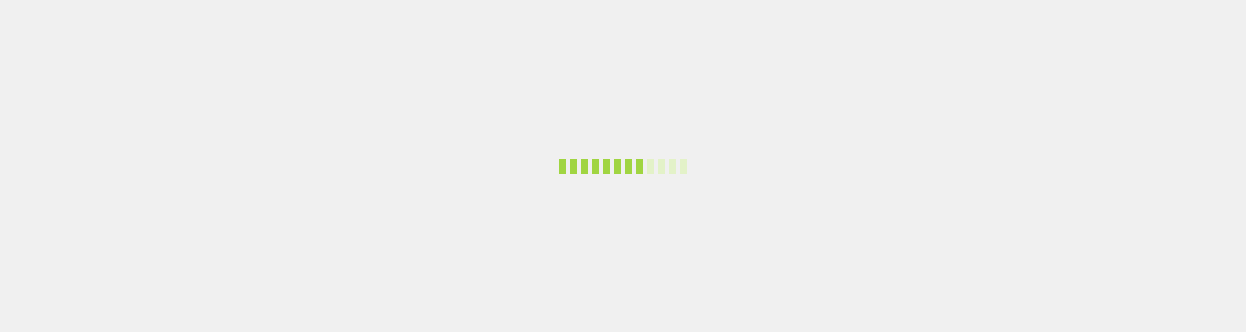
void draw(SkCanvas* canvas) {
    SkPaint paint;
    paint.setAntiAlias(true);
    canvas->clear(0xFFF0F0F0);
    canvas->drawImageRect(SkImages::DeferredFromEncodedData(SkData::MakeFromFileName("img1.png")), SkRect::MakeXYWH(559, 159, 128, 15), SkSamplingOptions());
}
